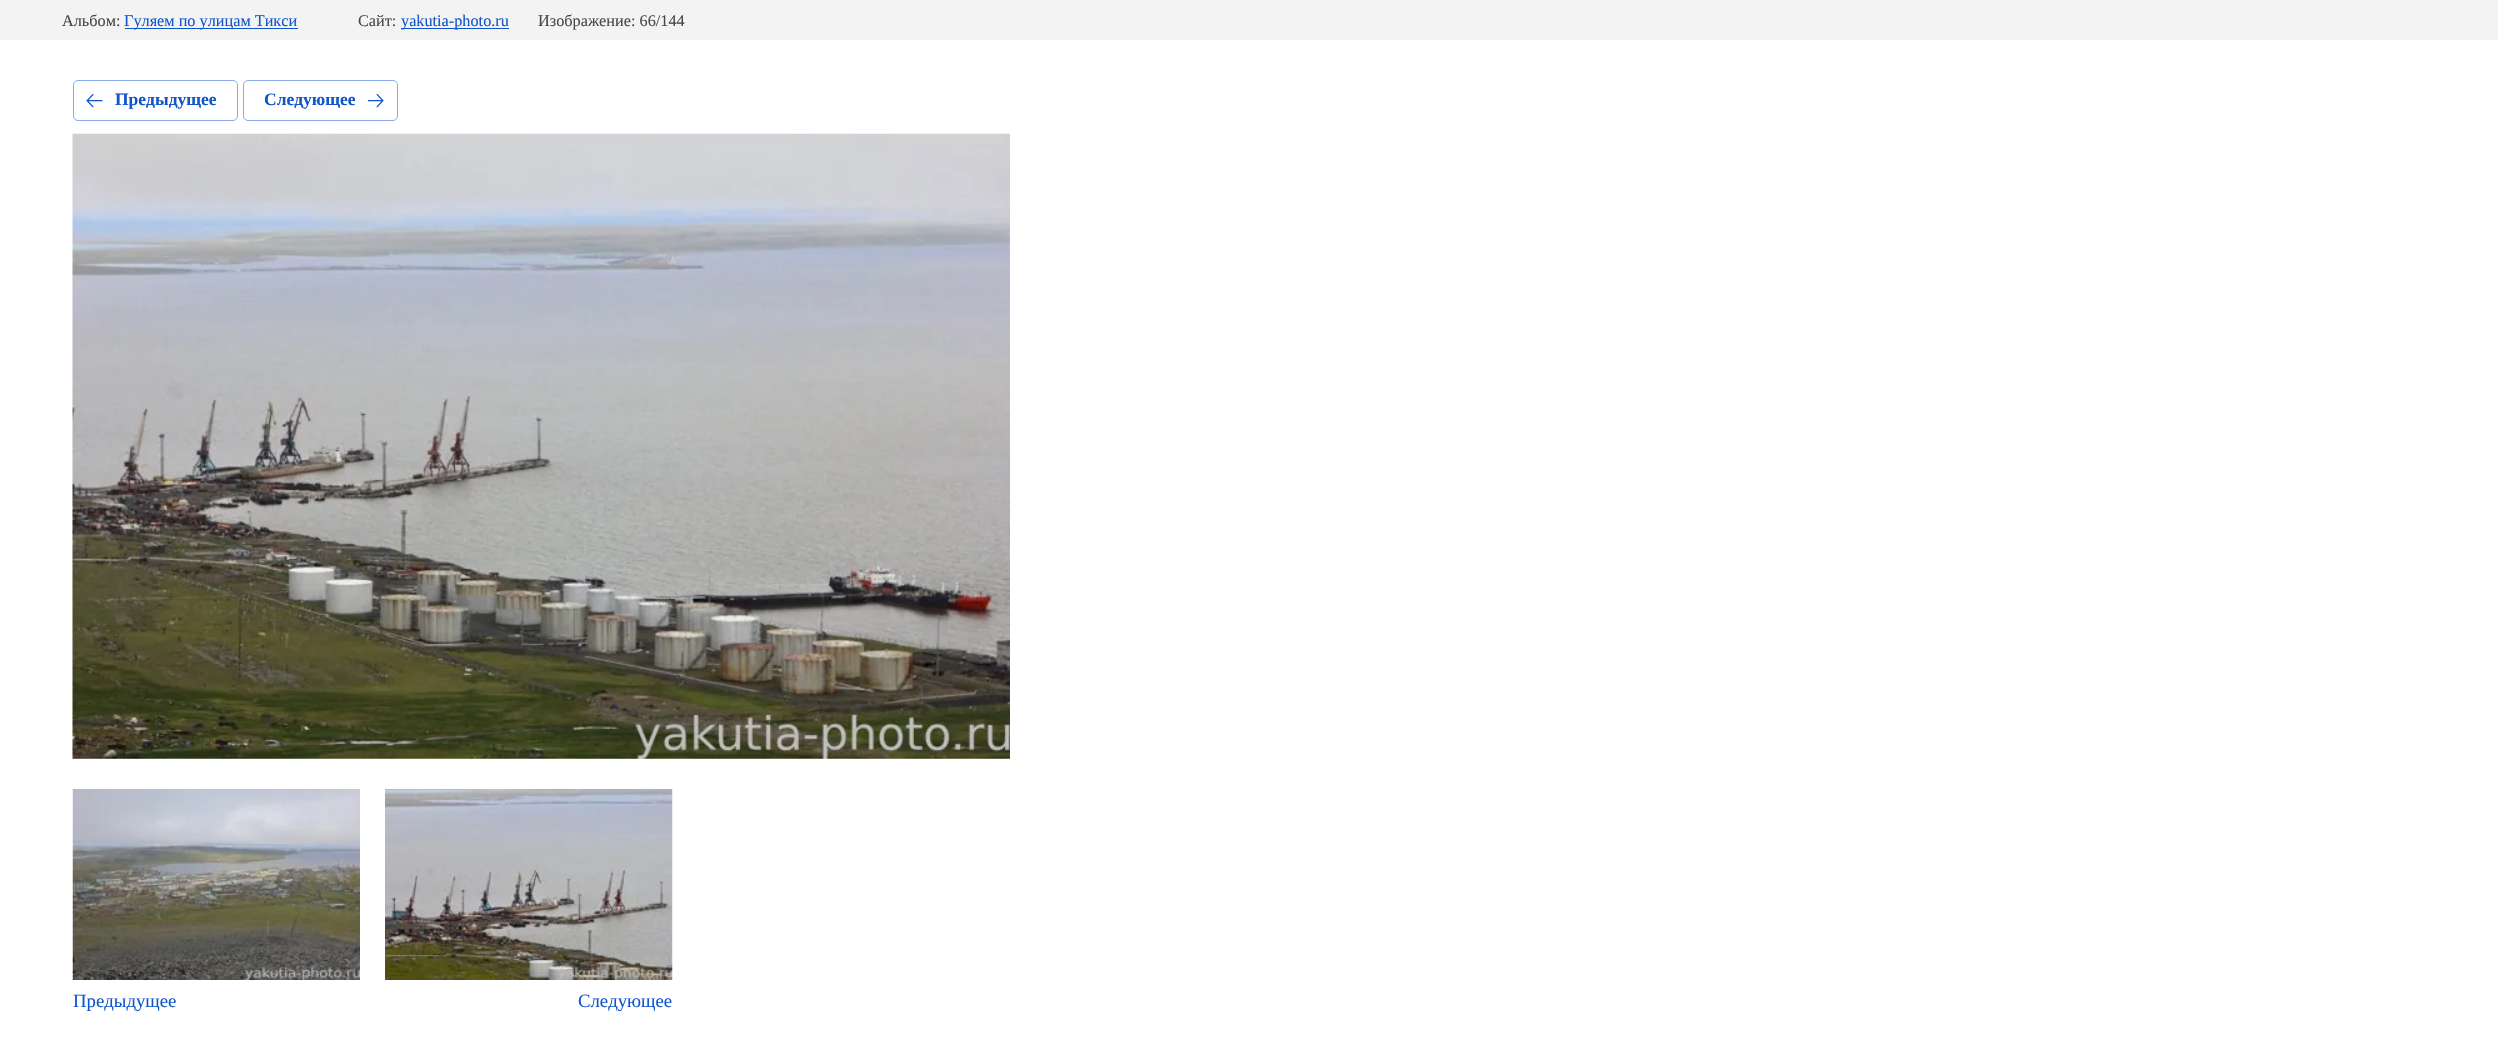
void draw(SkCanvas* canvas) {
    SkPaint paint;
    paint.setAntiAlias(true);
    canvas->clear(0xFFFFFFFF);
    paint.setColor(0xFFF3F3F3);
    canvas->drawRect(SkRect::MakeXYWH(0, 0, 2498, 40), paint);
    SkFont font1(fontMgr->matchFamilyStyle("Liberation Serif", SkFontStyle::Normal()), 16.25f);
    font1.setSubpixel(true);
    paint.setColor(0xFF484848);
    canvas->drawString("Альбом:", 62, 26, font1, paint);
    paint.setColor(0xFF1155CC);
    canvas->drawRect(SkRect::MakeXYWH(125, 28, 173, 1), paint);
    canvas->drawString("Гуляем по улицам Тикси", 124, 26, font1, paint);
    paint.setColor(0xFF484848);
    canvas->drawString("Сайт:", 358, 26, font1, paint);
    paint.setColor(0xFF1155CC);
    canvas->drawRect(SkRect::MakeXYWH(401, 28, 108, 1), paint);
    canvas->drawString("yakutia-photo.ru", 401, 26, font1, paint);
    paint.setColor(0xFF484848);
    canvas->drawString("Изображение: 66/144", 538, 26, font1, paint);
    paint.setStyle(SkPaint::kStroke_Style);
    paint.setStrokeWidth(1);
    paint.setColor(0xFF88AAE6);
    canvas->drawRoundRect(SkRect::MakeXYWH(73.5f, 80.5f, 164, 40), 4.5f, 4.5f, paint);
    canvas->drawImageRect(SkImages::DeferredFromEncodedData(SkData::MakeFromFileName("img1.png")), SkRect::MakeXYWH(86, 94, 17, 14), SkSamplingOptions());
    SkFont font2(fontMgr->matchFamilyStyle("Liberation Serif", SkFontStyle::Bold()), 17.5f);
    font2.setSubpixel(true);
    paint.setStyle(SkPaint::kFill_Style);
    paint.setColor(0xFF1155CC);
    canvas->drawString("Предыдущее", 115, 105, font2, paint);
    paint.setStyle(SkPaint::kStroke_Style);
    paint.setColor(0xFF88AAE6);
    canvas->drawRoundRect(SkRect::MakeXYWH(243.5f, 80.5f, 154, 40), 4.5f, 4.5f, paint);
    paint.setStyle(SkPaint::kFill_Style);
    paint.setColor(0xFF1155CC);
    canvas->drawString("Следующее", 264, 105, font2, paint);
    canvas->drawImageRect(SkImages::DeferredFromEncodedData(SkData::MakeFromFileName("img2.png")), SkRect::MakeXYWH(368, 94, 16, 14), SkSamplingOptions());
    canvas->drawImageRect(SkImages::DeferredFromEncodedData(SkData::MakeFromFileName("img3.png")), SkRect::MakeXYWH(72, 133, 938, 626), SkSamplingOptions());
    canvas->drawImageRect(SkImages::DeferredFromEncodedData(SkData::MakeFromFileName("img4.png")), SkRect::MakeXYWH(72, 788, 288, 192), SkSamplingOptions());
    SkFont font3(fontMgr->matchFamilyStyle("Liberation Serif", SkFontStyle::Normal()), 18.75f);
    font3.setSubpixel(true);
    canvas->drawString("Предыдущее", 73, 1007, font3, paint);
    canvas->drawImageRect(SkImages::DeferredFromEncodedData(SkData::MakeFromFileName("img5.png")), SkRect::MakeXYWH(385, 788, 288, 192), SkSamplingOptions());
    canvas->drawString("Следующее", 578, 1007, font3, paint);
}
